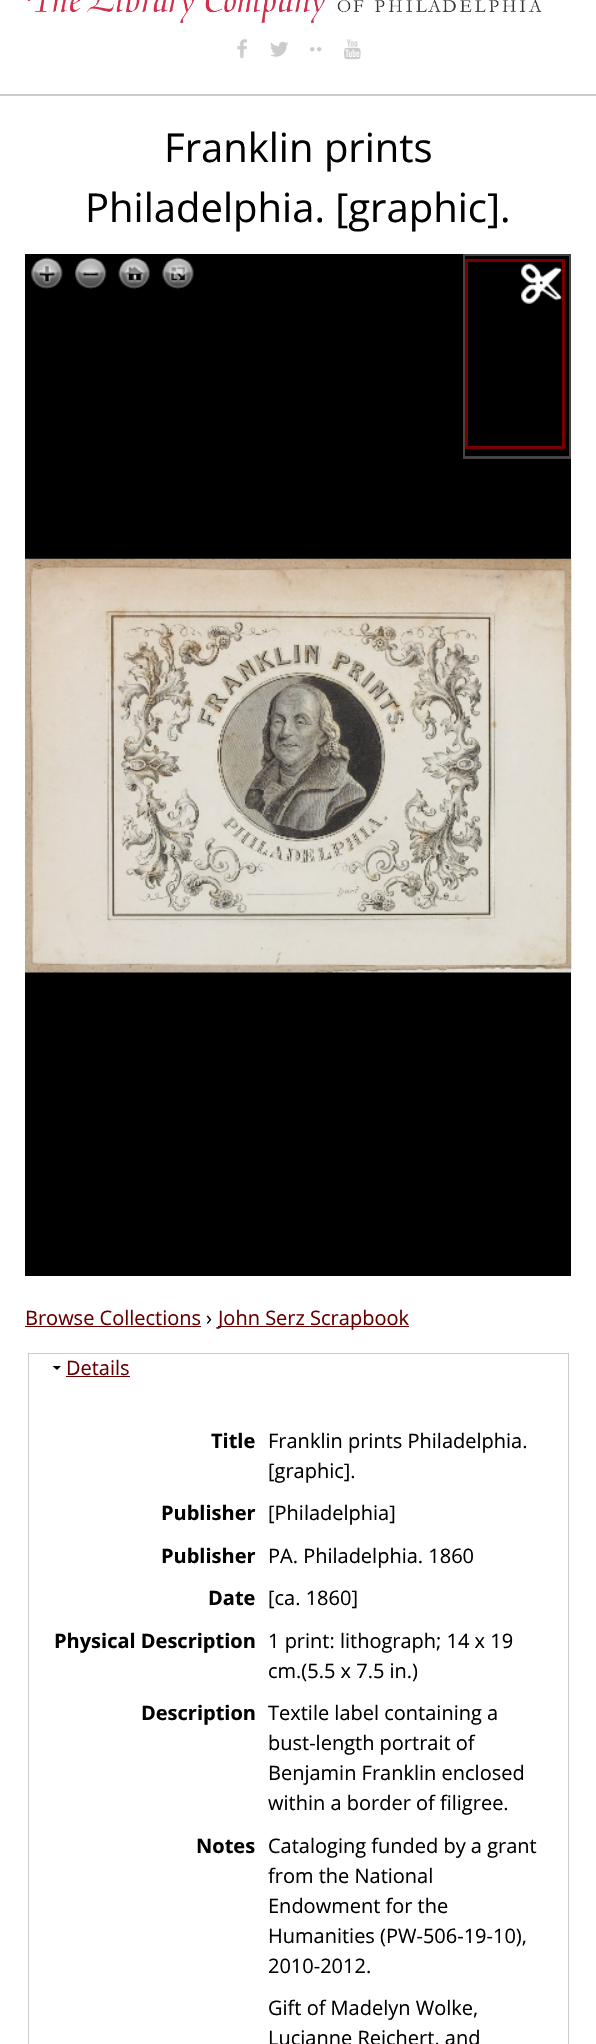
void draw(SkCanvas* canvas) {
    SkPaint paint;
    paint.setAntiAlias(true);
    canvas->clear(0xFFFFFFFF);
    canvas->drawImageRect(SkImages::DeferredFromEncodedData(SkData::MakeFromFileName("img1.png")), SkRect::MakeXYWH(27, 0, 515, 24), SkSamplingOptions());
    canvas->drawImageRect(SkImages::DeferredFromEncodedData(SkData::MakeFromFileName("img2.png")), SkRect::MakeXYWH(237, 39, 10, 19), SkSamplingOptions());
    canvas->drawImageRect(SkImages::DeferredFromEncodedData(SkData::MakeFromFileName("img3.png")), SkRect::MakeXYWH(270, 41, 18, 16), SkSamplingOptions());
    canvas->drawImageRect(SkImages::DeferredFromEncodedData(SkData::MakeFromFileName("img4.png")), SkRect::MakeXYWH(310, 47, 12, 5), SkSamplingOptions());
    canvas->drawImageRect(SkImages::DeferredFromEncodedData(SkData::MakeFromFileName("img5.png")), SkRect::MakeXYWH(344, 39, 17, 21), SkSamplingOptions());
    paint.setColor(0xFFCCCCCC);
    canvas->drawRect(SkRect::MakeXYWH(0, 94, 596, 2), paint);
    SkFont font1(fontMgr->matchFamilyStyle("Open Sans", SkFontStyle::Normal()), 40);
    font1.setSubpixel(true);
    paint.setColor(0xFF000000);
    canvas->drawString("Franklin prints", 164, 162, font1, paint);
    canvas->drawString("Philadelphia. [graphic].", 85, 222, font1, paint);
    canvas->drawRect(SkRect::MakeXYWH(25, 254, 546, 1022), paint);
    canvas->drawImageRect(SkImages::DeferredFromEncodedData(SkData::MakeFromFileName("img6.png")), SkRect::MakeXYWH(25, 558, 547, 415), SkSamplingOptions());
    canvas->drawImageRect(SkImages::DeferredFromEncodedData(SkData::MakeFromFileName("img7.png")), SkRect::MakeXYWH(31, 257, 32, 32), SkSamplingOptions());
    canvas->drawImageRect(SkImages::DeferredFromEncodedData(SkData::MakeFromFileName("img8.png")), SkRect::MakeXYWH(31, 257, 32, 32), SkSamplingOptions());
    canvas->drawImageRect(SkImages::DeferredFromEncodedData(SkData::MakeFromFileName("img9.png")), SkRect::MakeXYWH(74, 257, 33, 32), SkSamplingOptions());
    canvas->drawImageRect(SkImages::DeferredFromEncodedData(SkData::MakeFromFileName("img10.png")), SkRect::MakeXYWH(75, 257, 32, 32), SkSamplingOptions());
    canvas->drawImageRect(SkImages::DeferredFromEncodedData(SkData::MakeFromFileName("img11.png")), SkRect::MakeXYWH(118, 257, 33, 32), SkSamplingOptions());
    canvas->drawImageRect(SkImages::DeferredFromEncodedData(SkData::MakeFromFileName("img12.png")), SkRect::MakeXYWH(118, 257, 32, 32), SkSamplingOptions());
    canvas->drawImageRect(SkImages::DeferredFromEncodedData(SkData::MakeFromFileName("img13.png")), SkRect::MakeXYWH(162, 257, 32, 32), SkSamplingOptions());
    canvas->drawImageRect(SkImages::DeferredFromEncodedData(SkData::MakeFromFileName("img14.png")), SkRect::MakeXYWH(162, 257, 32, 32), SkSamplingOptions());
    paint.setStyle(SkPaint::kStroke_Style);
    paint.setStrokeWidth(3);
    paint.setColor(0xFF444444);
    canvas->drawRect(SkRect::MakeXYWH(464.5f, 255.5f, 105, 202), paint);
    paint.setStyle(SkPaint::kFill_Style);
    paint.setColor(0xFF000000);
    canvas->drawRect(SkRect::MakeXYWH(465, 256, 104, 200), paint);
    paint.setStyle(SkPaint::kStroke_Style);
    paint.setColor(0xFF7A0000);
    canvas->drawRect(SkRect::MakeXYWH(466.5f, 260.5f, 97, 187), paint);
    canvas->drawImageRect(SkImages::DeferredFromEncodedData(SkData::MakeFromFileName("img15.png")), SkRect::MakeXYWH(521, 263, 41, 41), SkSamplingOptions());
    SkFont font2(fontMgr->matchFamilyStyle("Open Sans", SkFontStyle::Normal()), 20);
    font2.setSubpixel(true);
    paint.setStyle(SkPaint::kFill_Style);
    paint.setColor(0xFF660000);
    canvas->drawString("Browse Collections", 25, 1325, font2, paint);
    canvas->drawRect(SkRect::MakeXYWH(25, 1326, 176, 1), paint);
    paint.setColor(0xFF000000);
    canvas->drawString("›", 206, 1325, font2, paint);
    paint.setColor(0xFF660000);
    canvas->drawRect(SkRect::MakeXYWH(218, 1326, 191, 1), paint);
    canvas->drawString("John Serz Scrapbook", 218, 1325, font2, paint);
    paint.setStyle(SkPaint::kStroke_Style);
    paint.setStrokeWidth(1);
    paint.setColor(0xFFCCCCCC);
    canvas->drawRect(SkRect::MakeXYWH(28.5f, 1353.5f, 540, 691), paint);
    paint.setStyle(SkPaint::kFill_Style);
    paint.setColor(0xFF000000);
    canvas->drawPath(SkPathBuilder().moveTo(61, 1366).lineTo(57, 1370).lineTo(52.5f, 1366).close().detach(), paint);
    paint.setColor(0xFF660000);
    canvas->drawString("Details", 66, 1375, font2, paint);
    canvas->drawRect(SkRect::MakeXYWH(66, 1376, 64, 1), paint);
    SkFont font3(fontMgr->matchFamilyStyle("Open Sans", SkFontStyle::Bold()), 20);
    font3.setSubpixel(true);
    paint.setColor(0xFF000000);
    canvas->drawString("Title", 211, 1448, font3, paint);
    canvas->drawString("Franklin prints Philadelphia.", 268, 1448, font2, paint);
    canvas->drawString("[graphic].", 268, 1478, font2, paint);
    canvas->drawString("Publisher", 161, 1520, font3, paint);
    canvas->drawString("[Philadelphia]", 268, 1520, font2, paint);
    canvas->drawString("Publisher", 161, 1563, font3, paint);
    canvas->drawString("PA. Philadelphia. 1860", 268, 1563, font2, paint);
    canvas->drawString("Date", 208, 1605, font3, paint);
    canvas->drawString("[ca. 1860]", 268, 1605, font2, paint);
    canvas->drawString("Physical Description", 54, 1648, font3, paint);
    canvas->drawString("1 print: lithograph; 14 x 19", 268, 1648, font2, paint);
    canvas->drawString("cm.(5.5 x 7.5 in.)", 268, 1678, font2, paint);
    canvas->drawString("Description", 141, 1720, font3, paint);
    canvas->drawString("Textile label containing a", 268, 1720, font2, paint);
    canvas->drawString("bust-length portrait of", 268, 1750, font2, paint);
    canvas->drawString("Benjamin Franklin enclosed", 268, 1780, font2, paint);
    canvas->drawString("within a border of filigree.", 268, 1810, font2, paint);
    canvas->drawString("Notes", 196, 1853, font3, paint);
    canvas->drawString("Cataloging funded by a grant", 268, 1853, font2, paint);
    canvas->drawString("from the National", 268, 1883, font2, paint);
    canvas->drawString("Endowment for the", 268, 1913, font2, paint);
    canvas->drawString("Humanities (PW-506-19-10),", 268, 1943, font2, paint);
    canvas->drawString("2010-2012.", 268, 1973, font2, paint);
    canvas->drawString("Gift of Madelyn Wolke,", 268, 2015, font2, paint);
    canvas->drawString("Lucianne Reichert, and", 268, 2045, font2, paint);
}
